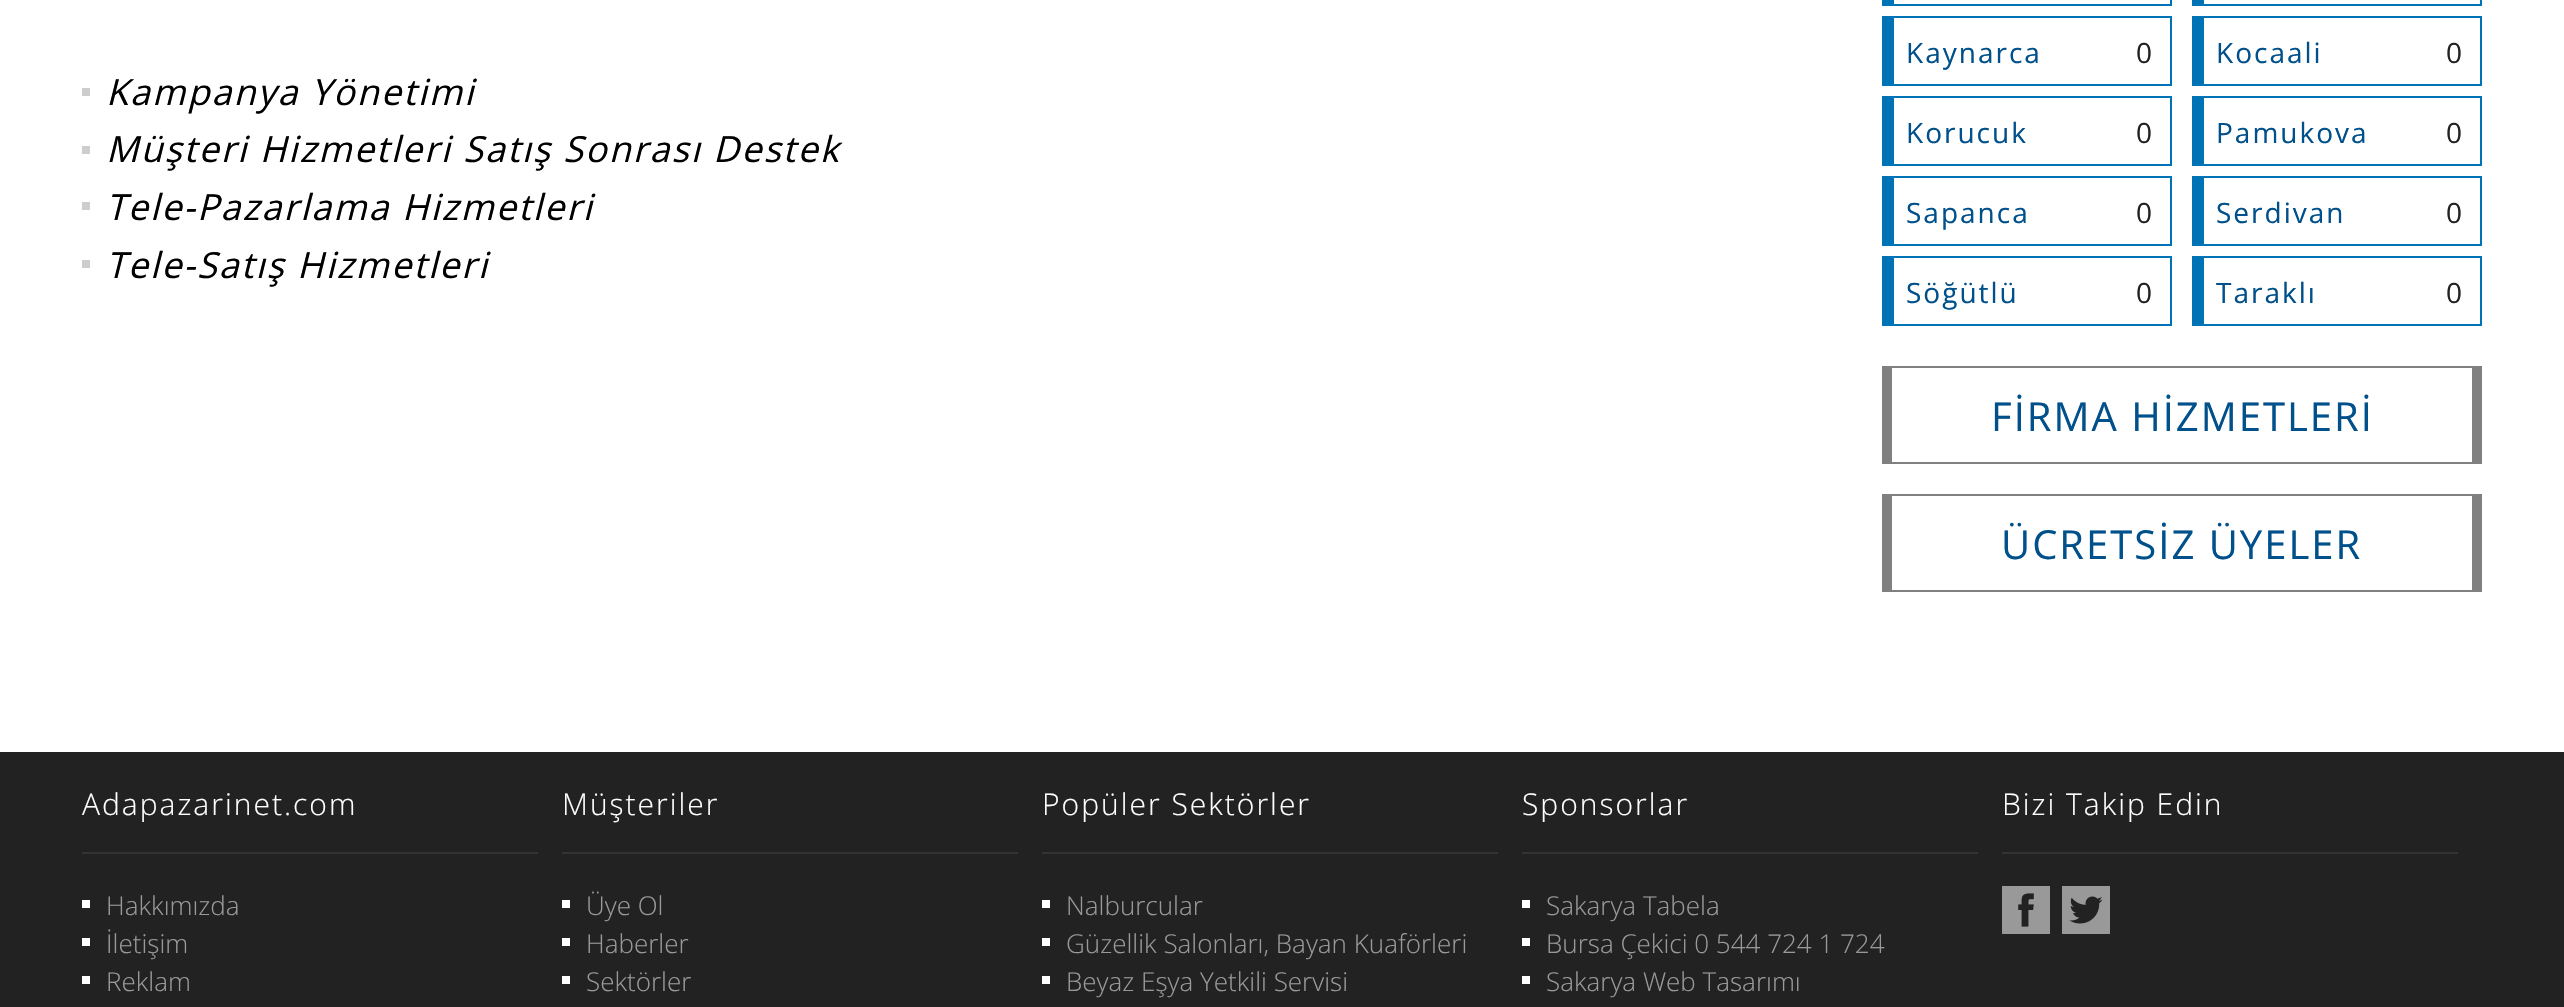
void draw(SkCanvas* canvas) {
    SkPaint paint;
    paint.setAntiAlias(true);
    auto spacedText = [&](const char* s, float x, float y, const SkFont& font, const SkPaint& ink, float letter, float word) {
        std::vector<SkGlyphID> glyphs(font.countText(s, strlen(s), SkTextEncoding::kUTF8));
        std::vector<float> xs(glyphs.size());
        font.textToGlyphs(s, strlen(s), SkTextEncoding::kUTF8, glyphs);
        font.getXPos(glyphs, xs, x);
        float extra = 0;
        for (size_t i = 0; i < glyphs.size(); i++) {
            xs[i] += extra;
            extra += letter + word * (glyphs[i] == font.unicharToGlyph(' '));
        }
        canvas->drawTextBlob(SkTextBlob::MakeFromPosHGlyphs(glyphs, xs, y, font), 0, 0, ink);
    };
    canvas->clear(0xFFFFFFFF);
    paint.setColor(0xFFCDCDCD);
    canvas->drawRect(SkRect::MakeXYWH(82, 88, 8, 8), paint);
    SkFont font1(fontMgr->matchFamilyStyle("Open Sans", SkFontStyle::Italic()), 36);
    font1.setSubpixel(true);
    paint.setColor(0xFF000000);
    spacedText("Kampanya Yönetimi", 106, 105, font1, paint, 2, 0);
    paint.setColor(0xFFCDCDCD);
    canvas->drawRect(SkRect::MakeXYWH(82, 146, 8, 8), paint);
    paint.setColor(0xFF000000);
    spacedText("Müşteri Hizmetleri Satış Sonrası Destek", 106, 162, font1, paint, 2, 0);
    paint.setColor(0xFFCDCDCD);
    canvas->drawRect(SkRect::MakeXYWH(82, 202, 8, 8), paint);
    paint.setColor(0xFF000000);
    spacedText("Tele-Pazarlama Hizmetleri", 106, 220, font1, paint, 2, 0);
    paint.setColor(0xFFCDCDCD);
    canvas->drawRect(SkRect::MakeXYWH(82, 260, 8, 8), paint);
    paint.setColor(0xFF000000);
    spacedText("Tele-Satış Hizmetleri", 106, 278, font1, paint, 2, 0);
    paint.setColor(0xFF0073B6);
    canvas->drawRect(SkRect::MakeXYWH(2170, 0, 2, 6), paint);
    canvas->drawRect(SkRect::MakeXYWH(1894, 4, 278, 2), paint);
    canvas->drawRect(SkRect::MakeXYWH(1882, 0, 12, 6), paint);
    canvas->drawRect(SkRect::MakeXYWH(2480, 0, 2, 6), paint);
    canvas->drawRect(SkRect::MakeXYWH(2204, 4, 278, 2), paint);
    canvas->drawRect(SkRect::MakeXYWH(2192, 0, 12, 6), paint);
    canvas->drawRect(SkRect::MakeXYWH(1894, 16, 278, 2), paint);
    canvas->drawRect(SkRect::MakeXYWH(2170, 16, 2, 70), paint);
    canvas->drawRect(SkRect::MakeXYWH(1894, 84, 278, 2), paint);
    canvas->drawRect(SkRect::MakeXYWH(1882, 16, 12, 70), paint);
    SkFont font2(fontMgr->matchFamilyStyle("Open Sans", SkFontStyle::Normal()), 28);
    font2.setSubpixel(true);
    paint.setColor(0xFF00508B);
    spacedText("Kaynarca", 1906, 63, font2, paint, 2, 0);
    paint.setColor(0xFF222222);
    spacedText("0", 2136, 63, font2, paint, 2, 0);
    paint.setColor(0xFF0073B6);
    canvas->drawRect(SkRect::MakeXYWH(2204, 16, 278, 2), paint);
    canvas->drawRect(SkRect::MakeXYWH(2480, 16, 2, 70), paint);
    canvas->drawRect(SkRect::MakeXYWH(2204, 84, 278, 2), paint);
    canvas->drawRect(SkRect::MakeXYWH(2192, 16, 12, 70), paint);
    paint.setColor(0xFF00508B);
    spacedText("Kocaali", 2216, 63, font2, paint, 2, 0);
    paint.setColor(0xFF222222);
    spacedText("0", 2446, 63, font2, paint, 2, 0);
    paint.setColor(0xFF0073B6);
    canvas->drawRect(SkRect::MakeXYWH(1894, 96, 278, 2), paint);
    canvas->drawRect(SkRect::MakeXYWH(2170, 96, 2, 70), paint);
    canvas->drawRect(SkRect::MakeXYWH(1894, 164, 278, 2), paint);
    canvas->drawRect(SkRect::MakeXYWH(1882, 96, 12, 70), paint);
    paint.setColor(0xFF00508B);
    spacedText("Korucuk", 1906, 143, font2, paint, 2, 0);
    paint.setColor(0xFF222222);
    spacedText("0", 2136, 143, font2, paint, 2, 0);
    paint.setColor(0xFF0073B6);
    canvas->drawRect(SkRect::MakeXYWH(2204, 96, 278, 2), paint);
    canvas->drawRect(SkRect::MakeXYWH(2480, 96, 2, 70), paint);
    canvas->drawRect(SkRect::MakeXYWH(2204, 164, 278, 2), paint);
    canvas->drawRect(SkRect::MakeXYWH(2192, 96, 12, 70), paint);
    paint.setColor(0xFF00508B);
    spacedText("Pamukova", 2216, 143, font2, paint, 2, 0);
    paint.setColor(0xFF222222);
    spacedText("0", 2446, 143, font2, paint, 2, 0);
    paint.setColor(0xFF0073B6);
    canvas->drawRect(SkRect::MakeXYWH(1894, 176, 278, 2), paint);
    canvas->drawRect(SkRect::MakeXYWH(2170, 176, 2, 70), paint);
    canvas->drawRect(SkRect::MakeXYWH(1894, 244, 278, 2), paint);
    canvas->drawRect(SkRect::MakeXYWH(1882, 176, 12, 70), paint);
    paint.setColor(0xFF00508B);
    spacedText("Sapanca", 1906, 223, font2, paint, 2, 0);
    paint.setColor(0xFF222222);
    spacedText("0", 2136, 223, font2, paint, 2, 0);
    paint.setColor(0xFF0073B6);
    canvas->drawRect(SkRect::MakeXYWH(2204, 176, 278, 2), paint);
    canvas->drawRect(SkRect::MakeXYWH(2480, 176, 2, 70), paint);
    canvas->drawRect(SkRect::MakeXYWH(2204, 244, 278, 2), paint);
    canvas->drawRect(SkRect::MakeXYWH(2192, 176, 12, 70), paint);
    paint.setColor(0xFF00508B);
    spacedText("Serdivan", 2216, 223, font2, paint, 2, 0);
    paint.setColor(0xFF222222);
    spacedText("0", 2446, 223, font2, paint, 2, 0);
    paint.setColor(0xFF0073B6);
    canvas->drawRect(SkRect::MakeXYWH(1894, 256, 278, 2), paint);
    canvas->drawRect(SkRect::MakeXYWH(2170, 256, 2, 70), paint);
    canvas->drawRect(SkRect::MakeXYWH(1894, 324, 278, 2), paint);
    canvas->drawRect(SkRect::MakeXYWH(1882, 256, 12, 70), paint);
    paint.setColor(0xFF00508B);
    spacedText("Söğütlü", 1906, 303, font2, paint, 2, 0);
    paint.setColor(0xFF222222);
    spacedText("0", 2136, 303, font2, paint, 2, 0);
    paint.setColor(0xFF0073B6);
    canvas->drawRect(SkRect::MakeXYWH(2204, 256, 278, 2), paint);
    canvas->drawRect(SkRect::MakeXYWH(2480, 256, 2, 70), paint);
    canvas->drawRect(SkRect::MakeXYWH(2204, 324, 278, 2), paint);
    canvas->drawRect(SkRect::MakeXYWH(2192, 256, 12, 70), paint);
    paint.setColor(0xFF00508B);
    spacedText("Taraklı", 2216, 303, font2, paint, 2, 0);
    paint.setColor(0xFF222222);
    spacedText("0", 2446, 303, font2, paint, 2, 0);
    paint.setColor(0xFF808080);
    canvas->drawRect(SkRect::MakeXYWH(1892, 366, 580, 2), paint);
    canvas->drawRect(SkRect::MakeXYWH(2472, 366, 10, 96), paint);
    canvas->drawRect(SkRect::MakeXYWH(1892, 462, 590, 2), paint);
    canvas->drawRect(SkRect::MakeXYWH(1882, 366, 10, 98), paint);
    SkFont font3(fontMgr->matchFamilyStyle("Open Sans", SkFontStyle::Normal()), 40);
    font3.setSubpixel(true);
    paint.setColor(0xFF00508B);
    spacedText("FİRMA HİZMETLERİ", 1991, 431, font3, paint, 2, 0);
    paint.setColor(0xFF808080);
    canvas->drawRect(SkRect::MakeXYWH(1892, 494, 580, 2), paint);
    canvas->drawRect(SkRect::MakeXYWH(2472, 494, 10, 96), paint);
    canvas->drawRect(SkRect::MakeXYWH(1892, 590, 590, 2), paint);
    canvas->drawRect(SkRect::MakeXYWH(1882, 494, 10, 98), paint);
    paint.setColor(0xFF00508B);
    spacedText("ÜCRETSİZ ÜYELER", 2001, 559, font3, paint, 2, 0);
    paint.setColor(0xFF222222);
    canvas->drawRect(SkRect::MakeXYWH(0, 752, 2564, 255), paint);
    paint.setColor(0xFF333333);
    canvas->drawRect(SkRect::MakeXYWH(82, 852, 456, 2), paint);
    SkFont font4(fontMgr->matchFamilyStyle("Open Sans", SkFontStyle(300, SkFontStyle::kNormal_Width, SkFontStyle::kUpright_Slant)), 30);
    font4.setSubpixel(true);
    paint.setColor(0xFFFFFFFF);
    spacedText("Adapazarinet.com", 82, 815, font4, paint, 2, 0);
    canvas->drawRect(SkRect::MakeXYWH(82, 900, 8, 8), paint);
    SkFont font5(fontMgr->matchFamilyStyle("Open Sans", SkFontStyle(300, SkFontStyle::kNormal_Width, SkFontStyle::kUpright_Slant)), 26);
    font5.setSubpixel(true);
    paint.setColor(0xFF999999);
    canvas->drawString("Hakkımızda", 106, 915, font5, paint);
    paint.setColor(0xFFFFFFFF);
    canvas->drawRect(SkRect::MakeXYWH(82, 938, 8, 8), paint);
    paint.setColor(0xFF999999);
    canvas->drawString("İletişim", 106, 953, font5, paint);
    paint.setColor(0xFFFFFFFF);
    canvas->drawRect(SkRect::MakeXYWH(82, 976, 8, 8), paint);
    paint.setColor(0xFF999999);
    canvas->drawString("Reklam", 106, 991, font5, paint);
    paint.setColor(0xFF333333);
    canvas->drawRect(SkRect::MakeXYWH(562, 852, 456, 2), paint);
    paint.setColor(0xFFFFFFFF);
    spacedText("Müşteriler", 562, 815, font4, paint, 2, 0);
    canvas->drawRect(SkRect::MakeXYWH(562, 900, 8, 8), paint);
    paint.setColor(0xFF999999);
    canvas->drawString("Üye Ol", 586, 915, font5, paint);
    paint.setColor(0xFFFFFFFF);
    canvas->drawRect(SkRect::MakeXYWH(562, 938, 8, 8), paint);
    paint.setColor(0xFF999999);
    canvas->drawString("Haberler", 586, 953, font5, paint);
    paint.setColor(0xFFFFFFFF);
    canvas->drawRect(SkRect::MakeXYWH(562, 976, 8, 8), paint);
    paint.setColor(0xFF999999);
    canvas->drawString("Sektörler", 586, 991, font5, paint);
    paint.setColor(0xFF333333);
    canvas->drawRect(SkRect::MakeXYWH(1042, 852, 456, 2), paint);
    paint.setColor(0xFFFFFFFF);
    spacedText("Popüler Sektörler", 1042, 815, font4, paint, 2, 0);
    canvas->drawRect(SkRect::MakeXYWH(1042, 900, 8, 8), paint);
    paint.setColor(0xFF999999);
    canvas->drawString("Nalburcular", 1066, 915, font5, paint);
    paint.setColor(0xFFFFFFFF);
    canvas->drawRect(SkRect::MakeXYWH(1042, 938, 8, 8), paint);
    paint.setColor(0xFF999999);
    canvas->drawString("Güzellik Salonları, Bayan Kuaförleri", 1066, 953, font5, paint);
    paint.setColor(0xFFFFFFFF);
    canvas->drawRect(SkRect::MakeXYWH(1042, 976, 8, 8), paint);
    paint.setColor(0xFF999999);
    canvas->drawString("Beyaz Eşya Yetkili Servisi", 1066, 991, font5, paint);
    paint.setColor(0xFF333333);
    canvas->drawRect(SkRect::MakeXYWH(1522, 852, 456, 2), paint);
    paint.setColor(0xFFFFFFFF);
    spacedText("Sponsorlar", 1522, 815, font4, paint, 2, 0);
    canvas->drawRect(SkRect::MakeXYWH(1522, 900, 8, 8), paint);
    paint.setColor(0xFF999999);
    canvas->drawString("Sakarya Tabela", 1546, 915, font5, paint);
    paint.setColor(0xFFFFFFFF);
    canvas->drawRect(SkRect::MakeXYWH(1522, 938, 8, 8), paint);
    paint.setColor(0xFF999999);
    canvas->drawString("Bursa Çekici 0 544 724 1 724", 1546, 953, font5, paint);
    paint.setColor(0xFFFFFFFF);
    canvas->drawRect(SkRect::MakeXYWH(1522, 976, 8, 8), paint);
    paint.setColor(0xFF999999);
    canvas->drawString("Sakarya Web Tasarımı", 1546, 991, font5, paint);
    paint.setColor(0xFF333333);
    canvas->drawRect(SkRect::MakeXYWH(2002, 852, 456, 2), paint);
    paint.setColor(0xFFFFFFFF);
    spacedText("Bizi Takip Edin", 2002, 815, font4, paint, 2, 0);
    canvas->drawImageRect(SkImages::DeferredFromEncodedData(SkData::MakeFromFileName("img1.png")), SkRect::MakeXYWH(2002, 886, 48, 48), SkSamplingOptions());
    canvas->drawImageRect(SkImages::DeferredFromEncodedData(SkData::MakeFromFileName("img2.png")), SkRect::MakeXYWH(2062, 886, 48, 48), SkSamplingOptions());
}
